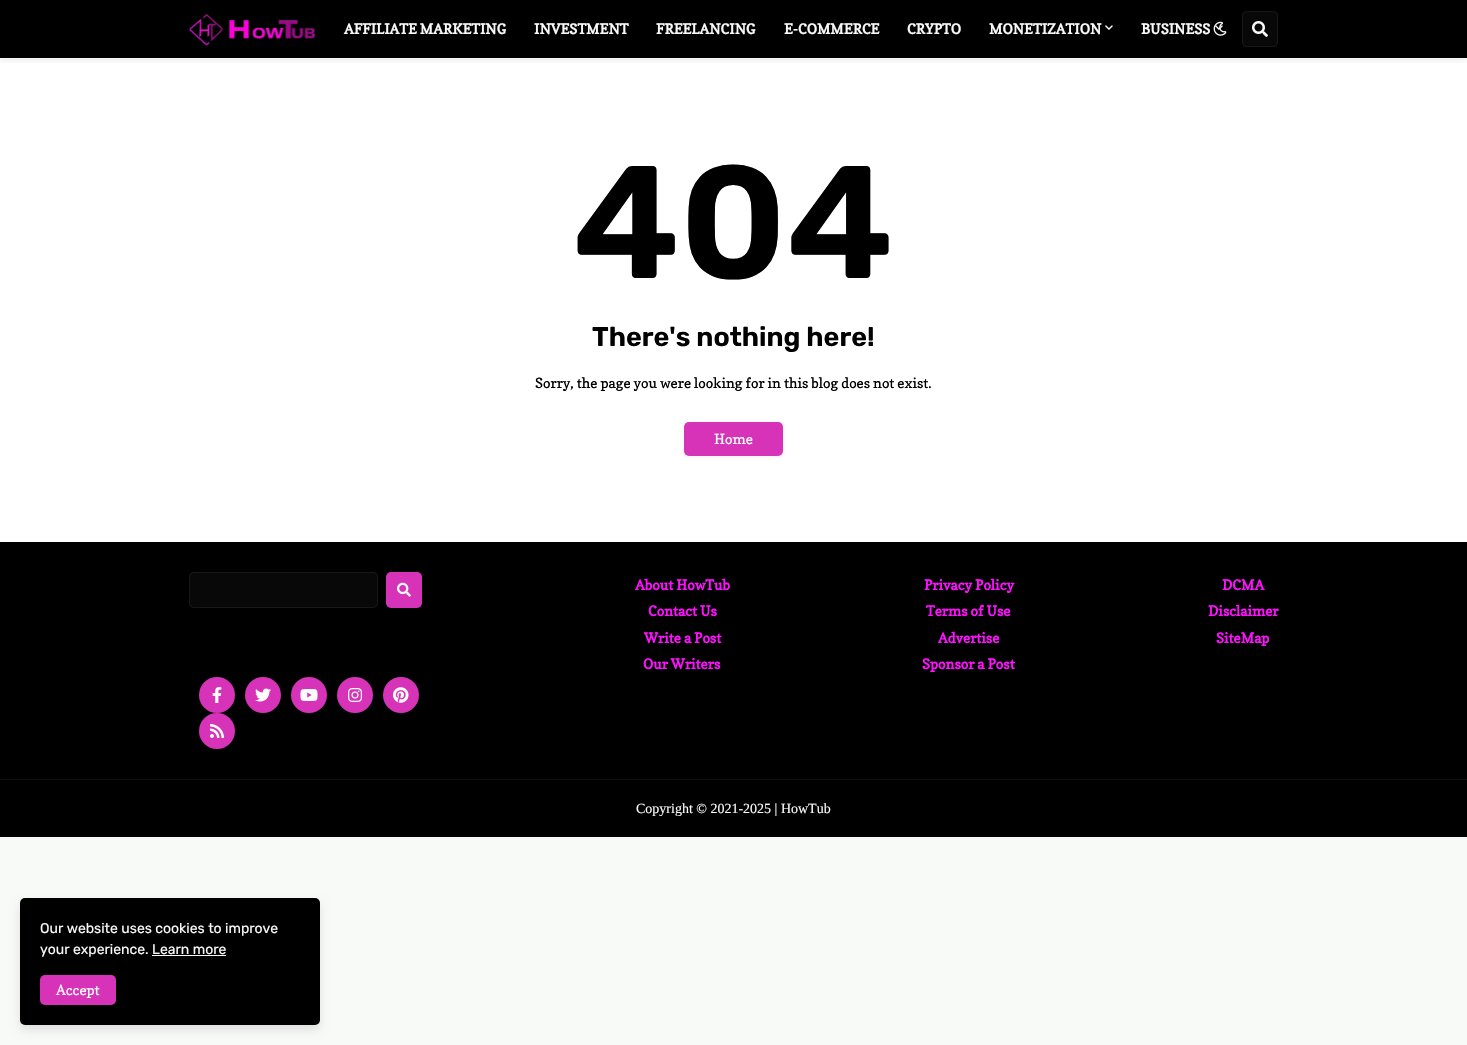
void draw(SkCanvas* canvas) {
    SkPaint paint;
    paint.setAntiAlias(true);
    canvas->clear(0xFFF8FAF8);
    paint.setColor(0xFFFFFFFF);
    canvas->drawRect(SkRect::MakeXYWH(0, 58, 1467, 484), paint);
    paint.setColor(0xFF000000);
    canvas->drawRect(SkRect::MakeXYWH(0, 0, 1467, 58), paint);
    canvas->save();
    canvas->clipRect(SkRect::MakeXYWH(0, 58, 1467, 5));
    paint.setColor(0x0D000000);
    paint.setMaskFilter(SkMaskFilter::MakeBlur(kNormal_SkBlurStyle, 3));
    canvas->drawRect(SkRect::MakeXYWH(0, 4, 1467, 58), paint);
    paint.setMaskFilter(nullptr);
    canvas->restore();
    canvas->drawImageRect(SkImages::DeferredFromEncodedData(SkData::MakeFromFileName("img1.png")), SkRect::MakeXYWH(189, 13, 126, 33), SkSamplingOptions());
    SkFont font1(fontMgr->matchFamilyStyle("Copse", SkFontStyle::Bold()), 14);
    font1.setSubpixel(true);
    paint.setColor(0xFFF8FAF8);
    canvas->drawString("AFFILIATE MARKETING", 344, 34, font1, paint);
    canvas->drawString("INVESTMENT", 534, 34, font1, paint);
    canvas->drawString("FREELANCING", 656, 34, font1, paint);
    canvas->drawString("E-COMMERCE", 784, 34, font1, paint);
    canvas->drawString("CRYPTO", 907, 34, font1, paint);
    canvas->drawString("MONETIZATION", 989, 34, font1, paint);
    canvas->drawImageRect(SkImages::DeferredFromEncodedData(SkData::MakeFromFileName("img2.png")), SkRect::MakeXYWH(1105, 25, 8, 5), SkSamplingOptions());
    canvas->drawString("BUSINESS", 1141, 34, font1, paint);
    canvas->drawImageRect(SkImages::DeferredFromEncodedData(SkData::MakeFromFileName("img2.png")), SkRect::MakeXYWH(1215, 25, 8, 5), SkSamplingOptions());
    canvas->drawImageRect(SkImages::DeferredFromEncodedData(SkData::MakeFromFileName("img3.png")), SkRect::MakeXYWH(1213, 21, 14, 15), SkSamplingOptions());
    paint.setColor(0xFF080808);
    canvas->drawRoundRect(SkRect::MakeXYWH(1242, 11, 36, 36), 5, 5, paint);
    paint.setStyle(SkPaint::kStroke_Style);
    paint.setStrokeWidth(1);
    paint.setColor(0x1A9B9B9B);
    canvas->drawRoundRect(SkRect::MakeXYWH(1242.5f, 11.5f, 35, 35), 4.5f, 4.5f, paint);
    canvas->drawImageRect(SkImages::DeferredFromEncodedData(SkData::MakeFromFileName("img4.png")), SkRect::MakeXYWH(1252, 21, 16, 16), SkSamplingOptions());
    SkFont font2(fontMgr->matchFamilyStyle("Rubik", SkFontStyle(600, SkFontStyle::kNormal_Width, SkFontStyle::kUpright_Slant)), 160);
    font2.setSubpixel(true);
    paint.setStyle(SkPaint::kFill_Style);
    paint.setColor(0xFF000000);
    canvas->drawString("404", 573, 278, font2, paint);
    SkFont font3(fontMgr->matchFamilyStyle("Rubik", SkFontStyle(600, SkFontStyle::kNormal_Width, SkFontStyle::kUpright_Slant)), 27);
    font3.setSubpixel(true);
    canvas->drawString("There's nothing here!", 592, 346, font3, paint);
    SkFont font4(fontMgr->matchFamilyStyle("Copse", SkFontStyle::Normal()), 14);
    font4.setSubpixel(true);
    canvas->drawString("Sorry, the page you were looking for in this blog does not exist.", 535, 388, font4, paint);
    paint.setColor(0x0D000000);
    paint.setMaskFilter(SkMaskFilter::MakeBlur(kNormal_SkBlurStyle, 2));
    canvas->drawRoundRect(SkRect::MakeXYWH(684, 423, 99, 34), 5, 5, paint);
    paint.setMaskFilter(nullptr);
    paint.setColor(0xFFD633B9);
    canvas->drawRoundRect(SkRect::MakeXYWH(684, 422, 99, 34), 5, 5, paint);
    paint.setColor(0xFFF8FAF8);
    canvas->drawString("Home", 714, 444, font4, paint);
    paint.setColor(0xFF000000);
    canvas->drawRect(SkRect::MakeXYWH(0, 542, 1467, 295), paint);
    paint.setColor(0xFF080808);
    canvas->drawRoundRect(SkRect::MakeXYWH(189, 572, 189, 36), 5, 5, paint);
    paint.setStyle(SkPaint::kStroke_Style);
    paint.setColor(0x1A9B9B9B);
    canvas->drawRoundRect(SkRect::MakeXYWH(189.5f, 572.5f, 188, 35), 4.5f, 4.5f, paint);
    paint.setStyle(SkPaint::kFill_Style);
    paint.setColor(0xFFD633B9);
    canvas->drawRoundRect(SkRect::MakeXYWH(386, 572, 36, 36), 5, 5, paint);
    canvas->drawImageRect(SkImages::DeferredFromEncodedData(SkData::MakeFromFileName("img5.png")), SkRect::MakeXYWH(397, 582, 14, 15), SkSamplingOptions());
    paint.setColor(0xFFFF10FF);
    canvas->drawString("About HowTub", 635, 590, font1, paint);
    canvas->drawString("Contact Us", 648, 616, font1, paint);
    canvas->drawString("Write a Post", 644, 643, font1, paint);
    canvas->drawString("Our Writers", 643, 669, font1, paint);
    canvas->drawString("Privacy Policy", 924, 590, font1, paint);
    canvas->drawString("Terms of Use", 926, 616, font1, paint);
    canvas->drawString("Advertise", 938, 643, font1, paint);
    canvas->drawString("Sponsor a Post", 922, 669, font1, paint);
    canvas->drawString("DCMA", 1222, 590, font1, paint);
    canvas->drawString("Disclaimer", 1208, 616, font1, paint);
    canvas->drawString("SiteMap", 1216, 643, font1, paint);
    paint.setColor(0xFFD633B9);
    canvas->drawCircle(217, 695, 18, paint);
    canvas->drawImageRect(SkImages::DeferredFromEncodedData(SkData::MakeFromFileName("img6.png")), SkRect::MakeXYWH(212, 687, 10, 16), SkSamplingOptions());
    canvas->drawCircle(263, 695, 18, paint);
    canvas->drawImageRect(SkImages::DeferredFromEncodedData(SkData::MakeFromFileName("img7.png")), SkRect::MakeXYWH(255, 688, 16, 14), SkSamplingOptions());
    canvas->drawCircle(309, 695, 18, paint);
    canvas->drawImageRect(SkImages::DeferredFromEncodedData(SkData::MakeFromFileName("img8.png")), SkRect::MakeXYWH(300, 689, 18, 12), SkSamplingOptions());
    canvas->drawCircle(355, 695, 18, paint);
    canvas->drawImageRect(SkImages::DeferredFromEncodedData(SkData::MakeFromFileName("img9.png")), SkRect::MakeXYWH(348, 688, 15, 14), SkSamplingOptions());
    canvas->drawCircle(401, 695, 18, paint);
    canvas->drawImageRect(SkImages::DeferredFromEncodedData(SkData::MakeFromFileName("img10.png")), SkRect::MakeXYWH(393, 687, 16, 16), SkSamplingOptions());
    canvas->drawCircle(217, 731, 18, paint);
    canvas->drawImageRect(SkImages::DeferredFromEncodedData(SkData::MakeFromFileName("img11.png")), SkRect::MakeXYWH(210, 724, 14, 14), SkSamplingOptions());
    paint.setColor(0xFF101010);
    canvas->drawRect(SkRect::MakeXYWH(0, 779, 1467, 1), paint);
    SkFont font5(fontMgr->matchFamilyStyle("Liberation Serif", SkFontStyle::Normal()), 14);
    font5.setSubpixel(true);
    paint.setColor(0xFFF8FAF8);
    canvas->drawString("Copyright © 2021-2025 | HowTub", 636, 813, font5, paint);
    paint.setColor(0x1A000000);
    paint.setMaskFilter(SkMaskFilter::MakeBlur(kNormal_SkBlurStyle, 5));
    canvas->drawRoundRect(SkRect::MakeXYWH(20, 903, 300, 127), 5, 5, paint);
    paint.setMaskFilter(nullptr);
    paint.setColor(0xFF000000);
    canvas->drawRoundRect(SkRect::MakeXYWH(20, 898, 300, 127), 5, 5, paint);
    SkFont font6(fontMgr->matchFamilyStyle("Rubik", SkFontStyle::Normal()), 14);
    font6.setSubpixel(true);
    paint.setColor(0xFFF8FAF8);
    canvas->drawString("Our website uses cookies to improve", 40, 933, font6, paint);
    canvas->drawString("your experience. Learn more", 40, 954, font6, paint);
    canvas->drawRect(SkRect::MakeXYWH(152, 955, 74, 1), paint);
    paint.setColor(0xFFD633B9);
    canvas->drawRoundRect(SkRect::MakeXYWH(40, 975, 76, 30), 5, 5, paint);
    paint.setColor(0xFFF8FAF8);
    canvas->drawString("Accept", 56, 995, font4, paint);
}
